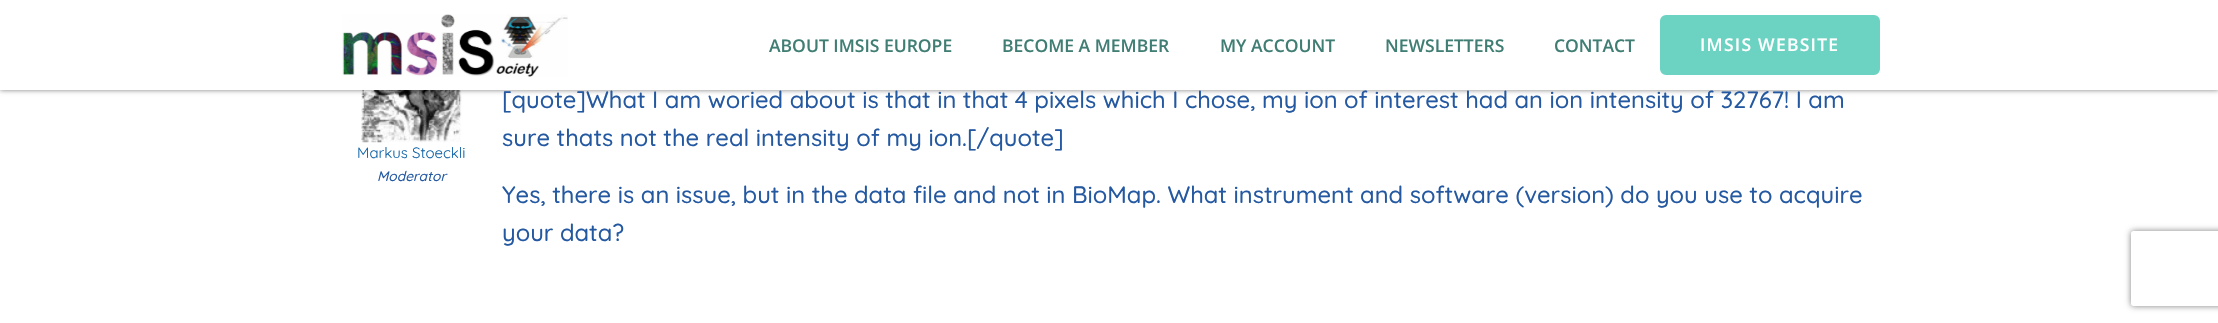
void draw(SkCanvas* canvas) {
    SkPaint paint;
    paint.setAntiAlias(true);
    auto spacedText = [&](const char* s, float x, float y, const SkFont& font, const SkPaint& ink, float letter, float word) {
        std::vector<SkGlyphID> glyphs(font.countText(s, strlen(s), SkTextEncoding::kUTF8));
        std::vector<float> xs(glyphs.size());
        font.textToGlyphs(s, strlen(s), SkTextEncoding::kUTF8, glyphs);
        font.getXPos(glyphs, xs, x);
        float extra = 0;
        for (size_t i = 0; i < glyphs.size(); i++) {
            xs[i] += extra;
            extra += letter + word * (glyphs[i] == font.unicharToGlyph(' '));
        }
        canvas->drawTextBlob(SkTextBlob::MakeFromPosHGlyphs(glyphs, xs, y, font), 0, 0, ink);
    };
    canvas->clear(0xFFFFFFFF);
    canvas->drawImageRect(SkImages::DeferredFromEncodedData(SkData::MakeFromFileName("img2.png")), SkRect::MakeXYWH(361, 90, 101, 53), SkSamplingOptions());
    paint.setColor(0x80000000);
    paint.setMaskFilter(SkMaskFilter::MakeBlur(kNormal_SkBlurStyle, 2.5f));
    canvas->drawRect(SkRect::MakeXYWH(0, 0, 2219, 90), paint);
    paint.setMaskFilter(nullptr);
    paint.setColor(0xFFFFFFFF);
    canvas->drawRect(SkRect::MakeXYWH(0, 0, 2218, 90), paint);
    canvas->drawImageRect(SkImages::DeferredFromEncodedData(SkData::MakeFromFileName("img1.png")), SkRect::MakeXYWH(342, 14, 226, 63), SkSamplingOptions());
    SkFont font1(fontMgr->matchFamilyStyle("Open Sans", SkFontStyle(600, SkFontStyle::kNormal_Width, SkFontStyle::kUpright_Slant)), 17.5f);
    font1.setSubpixel(true);
    paint.setColor(0xFF407E74);
    canvas->drawString("ABOUT IMSIS EUROPE", 769, 52, font1, paint);
    canvas->drawString("BECOME A MEMBER", 1002, 52, font1, paint);
    canvas->drawString("MY ACCOUNT", 1220, 52, font1, paint);
    canvas->drawString("NEWSLETTERS", 1385, 52, font1, paint);
    canvas->drawString("CONTACT", 1554, 52, font1, paint);
    paint.setColor(0xFF6CD3C2);
    canvas->drawRoundRect(SkRect::MakeXYWH(1661.5f, 16.5f, 217, 57), 4.5f, 4.5f, paint);
    paint.setStyle(SkPaint::kStroke_Style);
    paint.setStrokeWidth(3);
    canvas->drawRoundRect(SkRect::MakeXYWH(1661.5f, 16.5f, 217, 57), 4.5f, 4.5f, paint);
    paint.setStyle(SkPaint::kFill_Style);
    paint.setColor(0xFFFFFFFF);
    spacedText("IMSIS WEBSITE", 1700, 51, font1, paint, 1.25f, 0);
    SkFont font2(fontMgr->matchFamilyStyle("Quicksand", SkFontStyle::Normal()), 15);
    font2.setSubpixel(true);
    paint.setColor(0xFF1566A8);
    canvas->drawString("Markus Stoeckli", 357, 158, font2, paint);
    SkFont font3(fontMgr->matchFamilyStyle("Quicksand", SkFontStyle(500, SkFontStyle::kNormal_Width, SkFontStyle::kItalic_Slant)), 13.75f);
    font3.setSubpixel(true);
    paint.setColor(0xFF2459A1);
    canvas->drawString("Moderator", 377, 181, font3, paint);
    SkFont font4(fontMgr->matchFamilyStyle("Quicksand", SkFontStyle(500, SkFontStyle::kNormal_Width, SkFontStyle::kUpright_Slant)), 23.75f);
    font4.setSubpixel(true);
    canvas->drawString("[quote]What I am woried about is that in that 4 pixels which I chose, my ion of interest had an ion intensity of 32767! I am", 502, 108, font4, paint);
    canvas->drawString("sure thats not the real intensity of my ion.[/quote]", 502, 146, font4, paint);
    canvas->drawString("Yes, there is an issue, but in the data file and not in BioMap. What instrument and software (version) do you use to acquire", 502, 203, font4, paint);
    canvas->drawString("your data?", 502, 241, font4, paint);
    canvas->save();
    canvas->clipPath(SkPathBuilder(SkPathFillType::kEvenOdd).moveTo(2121, 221).lineTo(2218, 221).lineTo(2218, 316).lineTo(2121, 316).close().moveTo(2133.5f, 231).lineTo(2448.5f, 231).cubicTo(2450, 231, 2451, 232, 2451, 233.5f).lineTo(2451, 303.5f).cubicTo(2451, 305, 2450, 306, 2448.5f, 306).lineTo(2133.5f, 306).cubicTo(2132, 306, 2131, 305, 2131, 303.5f).lineTo(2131, 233.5f).cubicTo(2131, 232, 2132, 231, 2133.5f, 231).close().detach(), true);
    paint.setColor(0xFF808080);
    paint.setMaskFilter(SkMaskFilter::MakeBlur(kNormal_SkBlurStyle, 3));
    canvas->drawRoundRect(SkRect::MakeXYWH(2131, 231, 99, 75), 2.5f, 2.5f, paint);
    paint.setMaskFilter(nullptr);
    canvas->restore();
}
